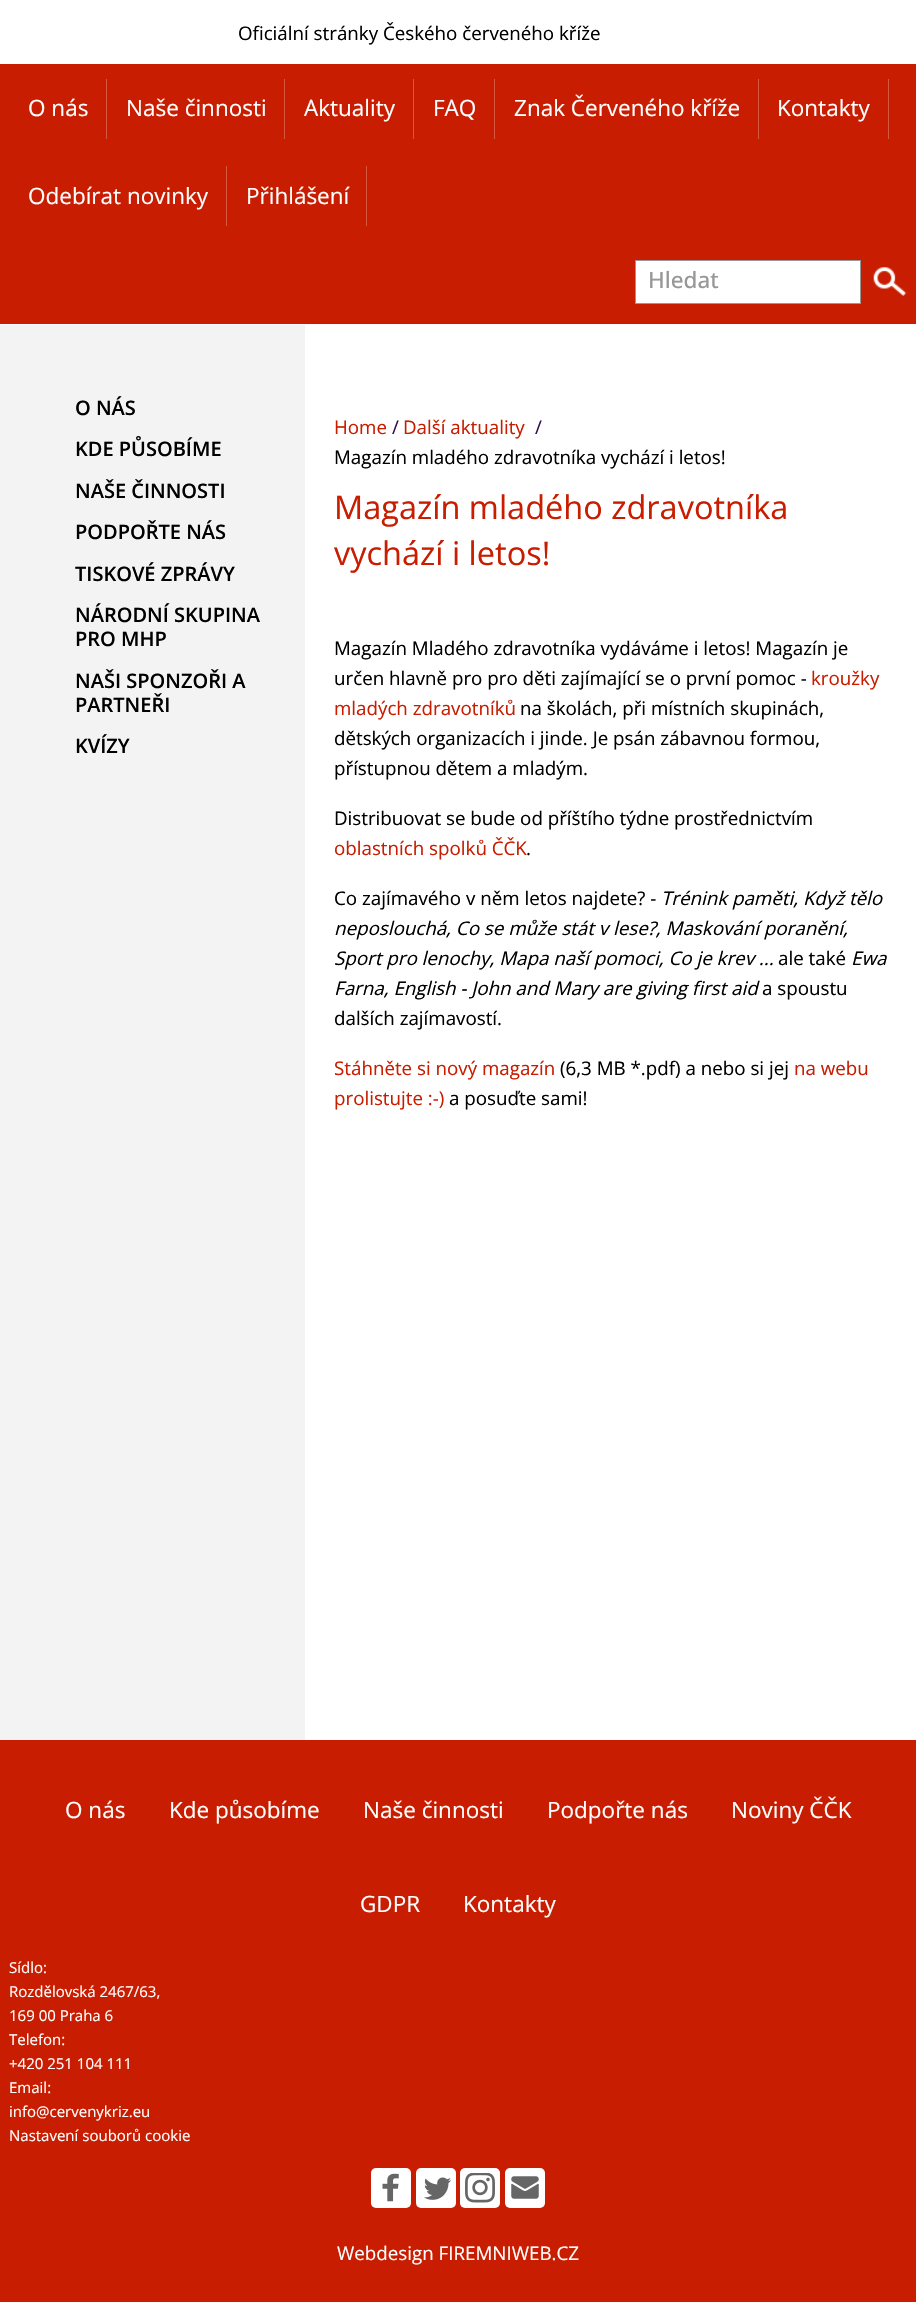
void draw(SkCanvas* canvas) {
    SkPaint paint;
    paint.setAntiAlias(true);
    canvas->clear(0xFFFFFFFF);
    SkFont font1(fontMgr->matchFamilyStyle("Open Sans", SkFontStyle::Normal()), 18.75f);
    font1.setSubpixel(true);
    paint.setColor(0xFF000000);
    canvas->drawString("Oficiální stránky Českého červeného kříže", 238, 40, font1, paint);
    paint.setColor(0xFFC81D00);
    canvas->drawRect(SkRect::MakeXYWH(0, 64, 916, 260), paint);
    SkFont font2(fontMgr->matchFamilyStyle("Open Sans", SkFontStyle::Normal()), 22.5f);
    font2.setSubpixel(true);
    paint.setColor(0xFFFFFFFF);
    canvas->drawString("O nás", 28, 116, font2, paint);
    paint.setColor(0xFFD65640);
    canvas->drawRect(SkRect::MakeXYWH(106, 79, 1, 60), paint);
    paint.setColor(0xFFFFFFFF);
    canvas->drawString("Naše činnosti", 126, 116, font2, paint);
    paint.setColor(0xFFD65640);
    canvas->drawRect(SkRect::MakeXYWH(284, 79, 1, 60), paint);
    paint.setColor(0xFFFFFFFF);
    canvas->drawString("Aktuality", 304, 116, font2, paint);
    paint.setColor(0xFFD65640);
    canvas->drawRect(SkRect::MakeXYWH(413, 79, 1, 60), paint);
    paint.setColor(0xFFFFFFFF);
    canvas->drawString("FAQ", 433, 116, font2, paint);
    paint.setColor(0xFFD65640);
    canvas->drawRect(SkRect::MakeXYWH(494, 79, 1, 60), paint);
    paint.setColor(0xFFFFFFFF);
    canvas->drawString("Znak Červeného kříže", 514, 116, font2, paint);
    paint.setColor(0xFFD65640);
    canvas->drawRect(SkRect::MakeXYWH(758, 79, 1, 60), paint);
    paint.setColor(0xFFFFFFFF);
    canvas->drawString("Kontakty", 777, 116, font2, paint);
    paint.setColor(0xFFD65640);
    canvas->drawRect(SkRect::MakeXYWH(888, 79, 1, 60), paint);
    paint.setColor(0xFFFFFFFF);
    canvas->drawString("Odebírat novinky", 28, 204, font2, paint);
    paint.setColor(0xFFD65640);
    canvas->drawRect(SkRect::MakeXYWH(226, 166, 1, 60), paint);
    paint.setColor(0xFFFFFFFF);
    canvas->drawString("Přihlášení", 246, 204, font2, paint);
    paint.setColor(0xFFD65640);
    canvas->drawRect(SkRect::MakeXYWH(366, 166, 1, 60), paint);
    paint.setColor(0xFFFFFFFF);
    canvas->drawRect(SkRect::MakeXYWH(635.5f, 260.5f, 225, 43), paint);
    paint.setStyle(SkPaint::kStroke_Style);
    paint.setStrokeWidth(1);
    paint.setColor(0xFF979797);
    canvas->drawRect(SkRect::MakeXYWH(635.5f, 260.5f, 225, 43), paint);
    SkFont font3(fontMgr->matchFamilyStyle("Open Sans", SkFontStyle(500, SkFontStyle::kNormal_Width, SkFontStyle::kUpright_Slant)), 22.5f);
    font3.setSubpixel(true);
    paint.setStyle(SkPaint::kFill_Style);
    canvas->drawString("Hledat", 648, 288, font3, paint);
    canvas->drawImageRect(SkImages::DeferredFromEncodedData(SkData::MakeFromFileName("img1.png")), SkRect::MakeXYWH(873, 267, 34, 29), SkSamplingOptions());
    paint.setColor(0xFFF3F3F3);
    canvas->drawRect(SkRect::MakeXYWH(0, 325, 305, 1415), paint);
    SkFont font4(fontMgr->matchFamilyStyle("Open Sans", SkFontStyle(600, SkFontStyle::kNormal_Width, SkFontStyle::kUpright_Slant)), 20);
    font4.setSubpixel(true);
    paint.setColor(0xFF000000);
    canvas->drawString("O NÁS", 75, 415, font4, paint);
    canvas->drawString("KDE PŮSOBÍME", 75, 456, font4, paint);
    canvas->drawString("NAŠE ČINNOSTI", 75, 498, font4, paint);
    canvas->drawString("PODPOŘTE NÁS", 75, 539, font4, paint);
    canvas->drawString("TISKOVÉ ZPRÁVY", 75, 581, font4, paint);
    canvas->drawString("NÁRODNÍ SKUPINA", 75, 622, font4, paint);
    canvas->drawString("PRO MHP", 75, 646, font4, paint);
    canvas->drawString("NAŠI SPONZOŘI A", 75, 688, font4, paint);
    canvas->drawString("PARTNEŘI", 75, 712, font4, paint);
    canvas->drawString("KVÍZY", 75, 753, font4, paint);
    paint.setColor(0xFFC81D00);
    canvas->drawString("Home", 334, 434, font1, paint);
    paint.setColor(0xFF330D4D);
    canvas->drawString("/", 392, 434, font1, paint);
    paint.setColor(0xFFC81D00);
    canvas->drawString("Další aktuality", 403, 434, font1, paint);
    paint.setColor(0xFF330D4D);
    canvas->drawString("/", 535, 434, font1, paint);
    paint.setColor(0xFF000000);
    canvas->drawString("Magazín mladého zdravotníka vychází i letos!", 334, 464, font1, paint);
    SkFont font5(fontMgr->matchFamilyStyle("Open Sans", SkFontStyle::Normal()), 32.5f);
    font5.setSubpixel(true);
    paint.setColor(0xFFC81D00);
    canvas->drawString("Magazín mladého zdravotníka", 334, 519, font5, paint);
    canvas->drawString("vychází i letos!", 334, 565, font5, paint);
    paint.setColor(0xFF000000);
    canvas->drawString("Magazín Mladého zdravotníka vydáváme i letos! Magazín je", 334, 655, font1, paint);
    canvas->drawString("určen hlavně pro pro děti zajímající se o první pomoc -", 334, 685, font1, paint);
    paint.setColor(0xFFC81D00);
    canvas->drawString("kroužky", 811, 685, font1, paint);
    canvas->drawString("mladých zdravotníků", 334, 715, font1, paint);
    paint.setColor(0xFF000000);
    canvas->drawString("na školách, při místních skupinách,", 520, 715, font1, paint);
    canvas->drawString("dětských organizacích i jinde. Je psán zábavnou formou,", 334, 745, font1, paint);
    canvas->drawString("přístupnou dětem a mladým.", 334, 775, font1, paint);
    canvas->drawString("Distribuovat se bude od příštího týdne prostřednictvím", 334, 825, font1, paint);
    paint.setColor(0xFFC81D00);
    canvas->drawString("oblastních spolků ČČK", 334, 855, font1, paint);
    paint.setColor(0xFF000000);
    canvas->drawString(".", 526, 855, font1, paint);
    canvas->drawString("Co zajímavého v něm letos najdete? -", 334, 905, font1, paint);
    SkFont font6(fontMgr->matchFamilyStyle("Open Sans", SkFontStyle::Italic()), 18.75f);
    font6.setSubpixel(true);
    canvas->drawString("Trénink paměti, Když tělo", 661, 905, font6, paint);
    canvas->drawString("neposlouchá, Co se může stát v lese?, Maskování poranění,", 334, 935, font6, paint);
    canvas->drawString("Sport pro lenochy, Mapa naší pomoci, Co je krev ...", 334, 965, font6, paint);
    canvas->drawString("ale také", 778, 965, font1, paint);
    canvas->drawString("Ewa", 851, 965, font6, paint);
    canvas->drawString("Farna, English - John and Mary are giving first aid", 334, 995, font6, paint);
    canvas->drawString("a spoustu", 762, 995, font1, paint);
    canvas->drawString("dalších zajímavostí.", 334, 1025, font1, paint);
    paint.setColor(0xFFC81D00);
    canvas->drawString("Stáhněte si nový magazín", 334, 1075, font1, paint);
    paint.setColor(0xFF000000);
    canvas->drawString("(6,3 MB *.pdf) a nebo si jej", 560, 1075, font1, paint);
    paint.setColor(0xFFC81D00);
    canvas->drawString("na webu", 794, 1075, font1, paint);
    canvas->drawString("prolistujte :-)", 334, 1105, font1, paint);
    paint.setColor(0xFF000000);
    canvas->drawString("a posuďte sami!", 449, 1105, font1, paint);
    paint.setColor(0xFFC81D00);
    canvas->drawRect(SkRect::MakeXYWH(0, 1740, 916, 562), paint);
    paint.setColor(0xFFFFFFFF);
    canvas->drawString("O nás", 65, 1818, font2, paint);
    canvas->drawString("Kde působíme", 169, 1818, font2, paint);
    canvas->drawString("Naše činnosti", 363, 1818, font2, paint);
    canvas->drawString("Podpořte nás", 547, 1818, font2, paint);
    canvas->drawString("Noviny ČČK", 731, 1818, font2, paint);
    canvas->drawString("GDPR", 360, 1912, font2, paint);
    canvas->drawString("Kontakty", 463, 1912, font2, paint);
    SkFont font7(fontMgr->matchFamilyStyle("Open Sans", SkFontStyle::Normal()), 15);
    font7.setSubpixel(true);
    canvas->drawString("Sídlo:", 9, 1973, font7, paint);
    canvas->drawString("Rozdělovská 2467/63,", 9, 1997, font7, paint);
    canvas->drawString("169 00 Praha 6", 9, 2021, font7, paint);
    canvas->drawString("Telefon:", 9, 2045, font7, paint);
    canvas->drawString("+420 251 104 111", 9, 2069, font7, paint);
    canvas->drawString("Email:", 9, 2093, font7, paint);
    canvas->drawString("info@cervenykriz.eu", 9, 2117, font7, paint);
    canvas->drawString("Nastavení souborů cookie", 9, 2141, font7, paint);
    canvas->drawRoundRect(SkRect::MakeXYWH(371, 2168, 40, 40), 5, 5, paint);
    canvas->drawImageRect(SkImages::DeferredFromEncodedData(SkData::MakeFromFileName("img2.png")), SkRect::MakeXYWH(382, 2173, 17, 29), SkSamplingOptions());
    canvas->drawRoundRect(SkRect::MakeXYWH(416, 2168, 40, 40), 5, 5, paint);
    canvas->drawImageRect(SkImages::DeferredFromEncodedData(SkData::MakeFromFileName("img3.png")), SkRect::MakeXYWH(424, 2177, 28, 23), SkSamplingOptions());
    canvas->drawRoundRect(SkRect::MakeXYWH(460, 2168, 40, 40), 5, 5, paint);
    canvas->drawImageRect(SkImages::DeferredFromEncodedData(SkData::MakeFromFileName("img4.png")), SkRect::MakeXYWH(465, 2173, 30, 30), SkSamplingOptions());
    canvas->drawRoundRect(SkRect::MakeXYWH(505, 2168, 40, 40), 5, 5, paint);
    canvas->drawImageRect(SkImages::DeferredFromEncodedData(SkData::MakeFromFileName("img5.png")), SkRect::MakeXYWH(511, 2176, 28, 23), SkSamplingOptions());
    canvas->drawString("Webdesign FIREMNIWEB.CZ", 337, 2260, font1, paint);
}
